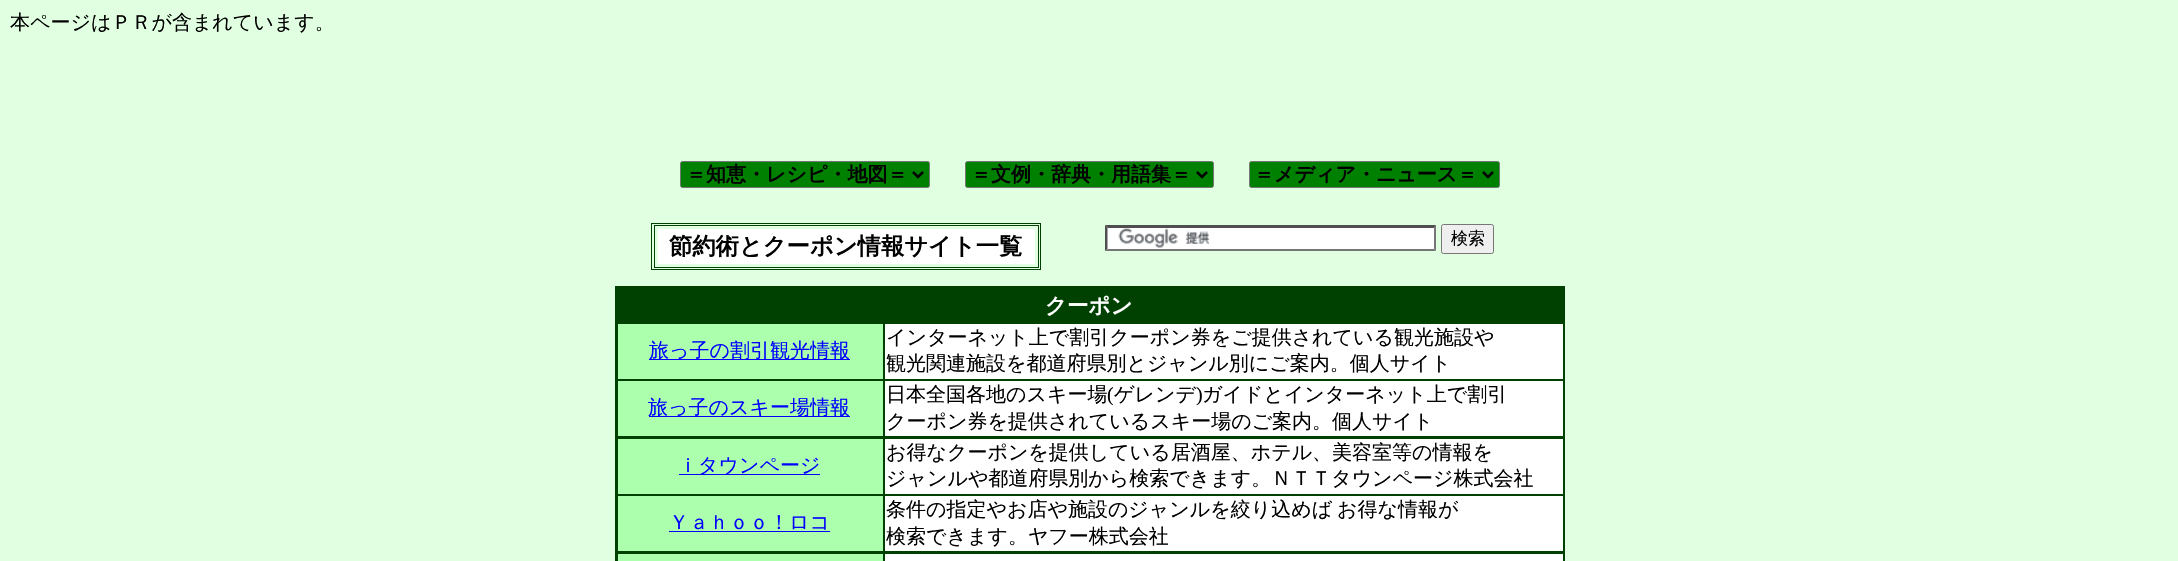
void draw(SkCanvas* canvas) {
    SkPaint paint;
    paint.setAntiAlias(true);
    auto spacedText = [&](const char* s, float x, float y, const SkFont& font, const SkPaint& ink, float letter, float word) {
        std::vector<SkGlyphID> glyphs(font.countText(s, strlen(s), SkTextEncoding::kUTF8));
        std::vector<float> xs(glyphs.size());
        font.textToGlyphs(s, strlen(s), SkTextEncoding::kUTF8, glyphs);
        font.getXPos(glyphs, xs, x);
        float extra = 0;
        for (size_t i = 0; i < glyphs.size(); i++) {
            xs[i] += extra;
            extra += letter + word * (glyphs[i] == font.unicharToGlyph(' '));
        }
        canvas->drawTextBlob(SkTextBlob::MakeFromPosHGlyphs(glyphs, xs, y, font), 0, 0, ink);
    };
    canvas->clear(0xFFE1FFE1);
    SkFont font1(fontMgr->matchFamilyStyle("WenQuanYi Zen Hei", SkFontStyle(500, SkFontStyle::kNormal_Width, SkFontStyle::kUpright_Slant)), 20);
    font1.setSubpixel(true);
    paint.setColor(0xFF000000);
    canvas->drawString("本ページはＰＲが含まれています。", 10, 29, font1, paint);
    paint.setColor(0xFF008000);
    canvas->drawRoundRect(SkRect::MakeXYWH(680.5f, 161.5f, 249, 26), 2, 2, paint);
    paint.setStyle(SkPaint::kStroke_Style);
    paint.setStrokeWidth(1);
    paint.setColor(0xFF767676);
    canvas->drawRoundRect(SkRect::MakeXYWH(680.5f, 161.5f, 249, 26), 2, 2, paint);
    paint.setStrokeWidth(2.5f);
    paint.setColor(0xFF000000);
    canvas->drawPath(SkPathBuilder().moveTo(913, 172).lineTo(918, 177).lineTo(923, 172).detach(), paint);
    SkFont font2(fontMgr->matchFamilyStyle("WenQuanYi Zen Hei", SkFontStyle::Bold()), 20);
    font2.setSubpixel(true);
    paint.setStyle(SkPaint::kFill_Style);
    canvas->drawString("＝知恵・レシピ・地図＝", 686, 181, font2, paint);
    paint.setColor(0xFF008000);
    canvas->drawRoundRect(SkRect::MakeXYWH(965.5f, 161.5f, 248, 26), 2, 2, paint);
    paint.setStyle(SkPaint::kStroke_Style);
    paint.setStrokeWidth(1);
    paint.setColor(0xFF767676);
    canvas->drawRoundRect(SkRect::MakeXYWH(965.5f, 161.5f, 248, 26), 2, 2, paint);
    paint.setStrokeWidth(2.5f);
    paint.setColor(0xFF000000);
    canvas->drawPath(SkPathBuilder().moveTo(1197, 172).lineTo(1202, 177).lineTo(1207, 172).detach(), paint);
    paint.setStyle(SkPaint::kFill_Style);
    canvas->drawString("＝文例・辞典・用語集＝", 971, 181, font2, paint);
    paint.setColor(0xFF008000);
    canvas->drawRoundRect(SkRect::MakeXYWH(1249.5f, 161.5f, 250, 26), 2, 2, paint);
    paint.setStyle(SkPaint::kStroke_Style);
    paint.setStrokeWidth(1);
    paint.setColor(0xFF767676);
    canvas->drawRoundRect(SkRect::MakeXYWH(1249.5f, 161.5f, 250, 26), 2, 2, paint);
    paint.setStrokeWidth(2.5f);
    paint.setColor(0xFF000000);
    canvas->drawPath(SkPathBuilder().moveTo(1483, 172).lineTo(1488, 177).lineTo(1493, 172).detach(), paint);
    paint.setStyle(SkPaint::kFill_Style);
    canvas->drawString("＝メディア・ニュース＝", 1254, 181, font2, paint);
    paint.setStyle(SkPaint::kStroke_Style);
    paint.setStrokeWidth(1);
    paint.setColor(0xFF004000);
    canvas->drawRect(SkRect::MakeXYWH(651.5f, 223.5f, 389, 46), paint);
    canvas->drawRect(SkRect::MakeXYWH(654.5f, 225.5f, 384, 42), paint);
    paint.setStyle(SkPaint::kFill_Style);
    paint.setColor(0xFFFFFFFF);
    canvas->drawRect(SkRect::MakeXYWH(658, 229, 377, 35), paint);
    SkFont font3(fontMgr->matchFamilyStyle("WenQuanYi Zen Hei", SkFontStyle::Bold()), 23.3f);
    font3.setSubpixel(true);
    paint.setColor(0xFF000000);
    canvas->drawString("節約術とクーポン情報サイト一覧", 669, 254, font3, paint);
    paint.setColor(0xFFFFFFFF);
    canvas->drawRect(SkRect::MakeXYWH(1105, 225, 331, 26), paint);
    canvas->drawImageRect(SkImages::DeferredFromEncodedData(SkData::MakeFromFileName("img1.png")), SkRect::MakeXYWH(1118, 228, 92, 20), SkSamplingOptions());
    paint.setColor(0xFF4F4F4F);
    canvas->drawPath(SkPathBuilder().moveTo(1105, 225).lineTo(1436, 225).lineTo(1434, 228).lineTo(1108, 228).close().detach(), paint);
    paint.setColor(0xFF767676);
    canvas->drawPath(SkPathBuilder().moveTo(1436, 225).lineTo(1436, 251).lineTo(1434, 249).lineTo(1434, 227.5f).close().detach(), paint);
    canvas->drawPath(SkPathBuilder().moveTo(1436, 251).lineTo(1105, 251).lineTo(1108, 249).lineTo(1434, 249).close().detach(), paint);
    paint.setColor(0xFF4F4F4F);
    canvas->drawPath(SkPathBuilder().moveTo(1105, 251).lineTo(1105, 225).lineTo(1107.5f, 227.5f).lineTo(1107.5f, 249).close().detach(), paint);
    paint.setColor(0xFFEFEFEF);
    canvas->drawRoundRect(SkRect::MakeXYWH(1441.5f, 224.5f, 52, 29), 2, 2, paint);
    paint.setStyle(SkPaint::kStroke_Style);
    paint.setColor(0xFF767676);
    canvas->drawRoundRect(SkRect::MakeXYWH(1441.5f, 224.5f, 52, 29), 2, 2, paint);
    SkFont font4(fontMgr->matchFamilyStyle("WenQuanYi Zen Hei", SkFontStyle(500, SkFontStyle::kNormal_Width, SkFontStyle::kUpright_Slant)), 17);
    font4.setSubpixel(true);
    paint.setStyle(SkPaint::kFill_Style);
    paint.setColor(0xFF000000);
    canvas->drawString("検索", 1451, 244, font4, paint);
    paint.setColor(0xFF004000);
    canvas->drawRect(SkRect::MakeXYWH(615, 286, 950, 275), paint);
    SkFont font5(fontMgr->matchFamilyStyle("WenQuanYi Zen Hei", SkFontStyle::Bold()), 21.5f);
    font5.setSubpixel(true);
    paint.setColor(0xFFFFFFFF);
    canvas->drawString("クーポン", 1045, 313, font5, paint);
    paint.setColor(0xFFACFFAC);
    canvas->drawRect(SkRect::MakeXYWH(618, 324, 265, 55), paint);
    paint.setColor(0xFF0000FF);
    canvas->drawRect(SkRect::MakeXYWH(649, 359, 201, 1), paint);
    canvas->drawString("旅っ子の割引観光情報", 649, 357, font1, paint);
    paint.setColor(0xFFFFFFFF);
    canvas->drawRect(SkRect::MakeXYWH(885, 324, 678, 55), paint);
    paint.setColor(0xFF000000);
    canvas->drawString("インターネット上で割引クーポン券をご提供されている観光施設や", 886, 344, font1, paint);
    canvas->drawString("観光関連施設を都道府県別とジャンル別にご案内。個人サイト", 886, 370, font1, paint);
    paint.setColor(0xFFACFFAC);
    canvas->drawRect(SkRect::MakeXYWH(618, 381, 265, 55), paint);
    paint.setColor(0xFF0000FF);
    canvas->drawRect(SkRect::MakeXYWH(649, 416, 201, 1), paint);
    canvas->drawString("旅っ子のスキー場情報", 648, 414, font1, paint);
    paint.setColor(0xFFFFFFFF);
    canvas->drawRect(SkRect::MakeXYWH(885, 381, 678, 55), paint);
    paint.setColor(0xFF000000);
    canvas->drawString("日本全国各地のスキー場", 886, 401, font1, paint);
    SkFont font6(fontMgr->matchFamilyStyle("Liberation Serif", SkFontStyle::Normal()), 20);
    font6.setSubpixel(true);
    canvas->drawString("(", 1107, 401, font6, paint);
    canvas->drawString("ゲレンデ", 1114, 401, font1, paint);
    canvas->drawString(")", 1196, 401, font6, paint);
    canvas->drawString("ガイドとインターネット上で割引", 1202, 401, font1, paint);
    canvas->drawString("クーポン券を提供されているスキー場のご案内。個人サイト", 886, 428, font1, paint);
    paint.setColor(0xFFACFFAC);
    canvas->drawRect(SkRect::MakeXYWH(618, 439, 265, 55), paint);
    paint.setColor(0xFF0000FF);
    canvas->drawRect(SkRect::MakeXYWH(679, 474, 141, 1), paint);
    canvas->drawString("ｉタウンページ", 678, 472, font1, paint);
    paint.setColor(0xFFFFFFFF);
    canvas->drawRect(SkRect::MakeXYWH(885, 439, 678, 55), paint);
    paint.setColor(0xFF000000);
    canvas->drawString("お得なクーポンを提供している居酒屋、ホテル、美容室等の情報を", 886, 459, font1, paint);
    canvas->drawString("ジャンルや都道府県別から検索できます。ＮＴＴタウンページ株式会社", 886, 485, font1, paint);
    paint.setColor(0xFFACFFAC);
    canvas->drawRect(SkRect::MakeXYWH(618, 496, 265, 55), paint);
    paint.setColor(0xFF0000FF);
    canvas->drawString("Ｙａｈｏｏ！ロコ", 669, 529, font1, paint);
    canvas->drawRect(SkRect::MakeXYWH(669, 531, 161, 1), paint);
    paint.setColor(0xFFFFFFFF);
    canvas->drawRect(SkRect::MakeXYWH(885, 496, 678, 55), paint);
    paint.setColor(0xFF000000);
    spacedText("条件の指定やお店や施設のジャンルを絞り込めば お得な情報が", 886, 516, font1, paint, 0, -1);
    canvas->drawString("検索できます。ヤフー株式会社", 886, 543, font1, paint);
    paint.setColor(0xFFACFFAC);
    canvas->drawRect(SkRect::MakeXYWH(618, 554, 265, 7), paint);
    paint.setColor(0xFFFFFFFF);
    canvas->drawRect(SkRect::MakeXYWH(885, 554, 678, 7), paint);
}
